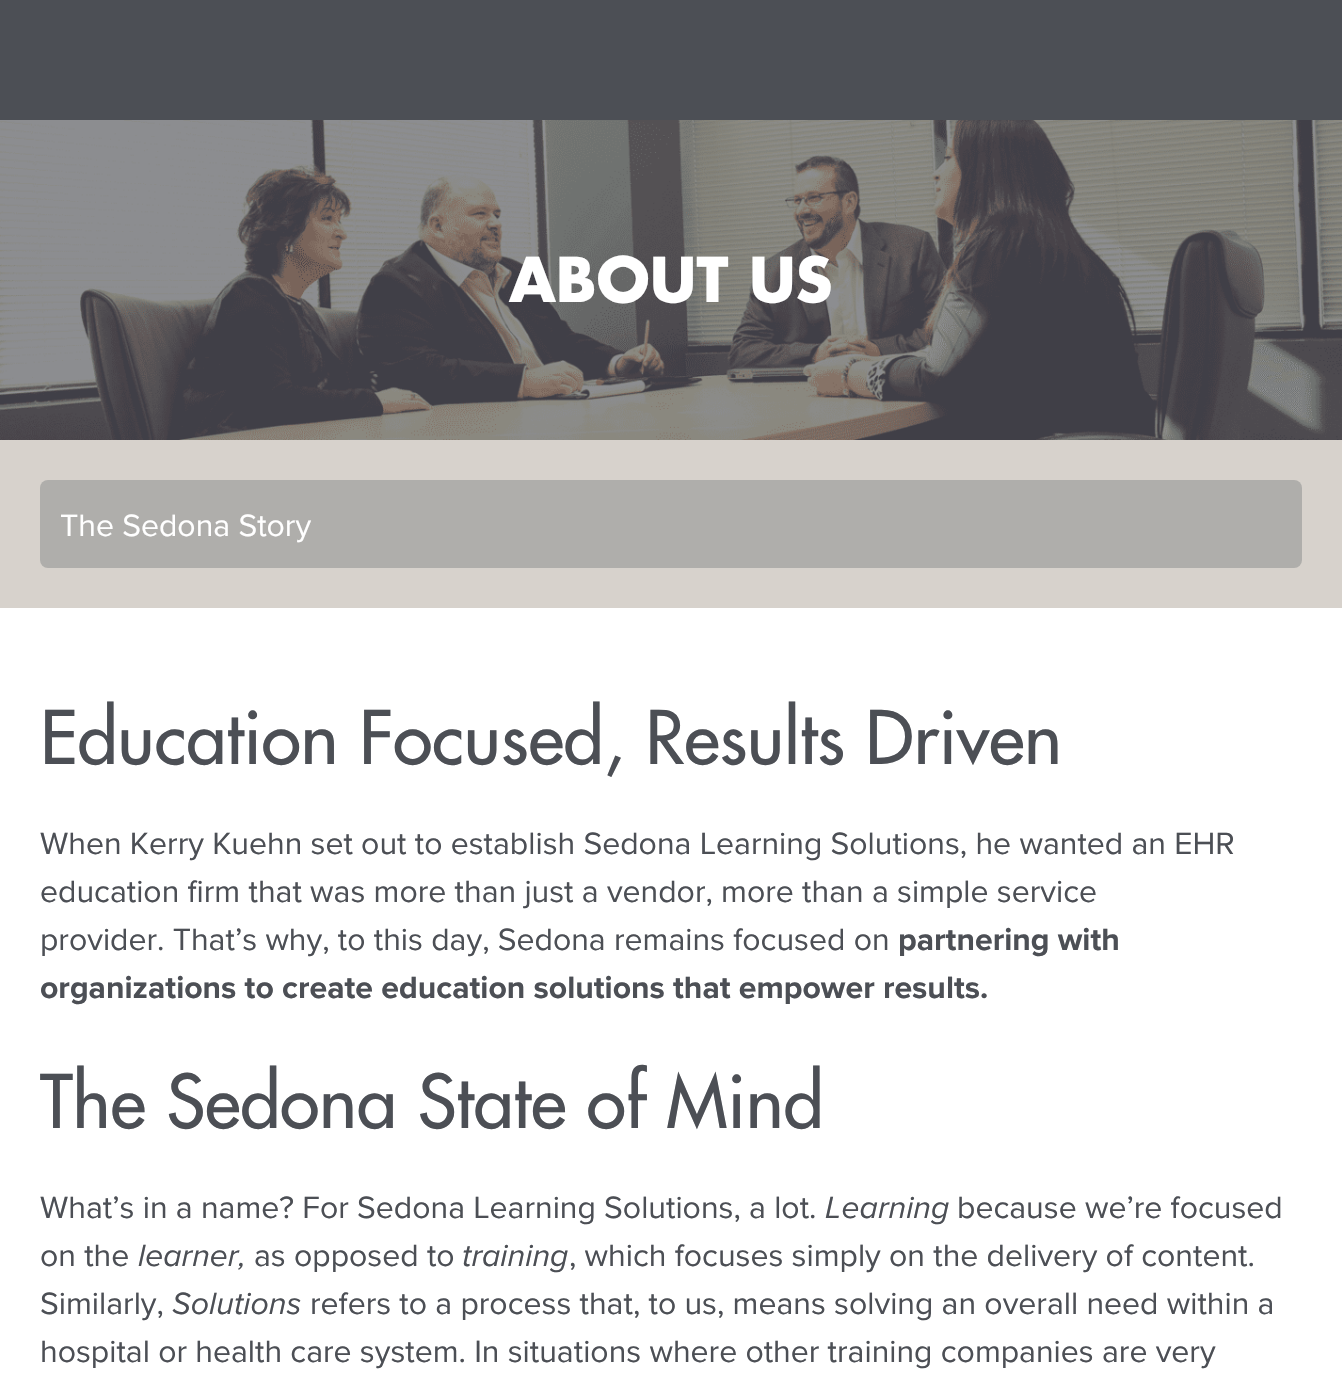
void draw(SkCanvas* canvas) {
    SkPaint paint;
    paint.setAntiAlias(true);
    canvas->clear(0xFF4C4F55);
    paint.setColor(0xFFFFFFFF);
    canvas->drawRect(SkRect::MakeXYWH(0, 608, 1342, 773), paint);
    canvas->drawImageRect(SkImages::DeferredFromEncodedData(SkData::MakeFromFileName("img1.png")), SkRect::MakeXYWH(0, 120, 1342, 320), SkSamplingOptions());
    SkFont font1(fontMgr->matchFamilyStyle("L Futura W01", SkFontStyle::Bold()), 60);
    font1.setSubpixel(true);
    canvas->drawString("ABOUT US", 509, 302, font1, paint);
    paint.setColor(0xFFD7D2CC);
    canvas->drawRect(SkRect::MakeXYWH(0, 440, 1342, 168), paint);
    paint.setColor(0xFFAFAEAB);
    canvas->drawRoundRect(SkRect::MakeXYWH(40, 480, 1262, 88), 8, 8, paint);
    SkFont font2(fontMgr->matchFamilyStyle("Proxima Nova", SkFontStyle::Normal()), 32);
    font2.setSubpixel(true);
    paint.setColor(0xFFFFFFFF);
    canvas->drawString("The Sedona Story", 60, 536, font2, paint);
    SkFont font3(fontMgr->matchFamilyStyle("L Futura W01", SkFontStyle(500, SkFontStyle::kNormal_Width, SkFontStyle::kUpright_Slant)), 72);
    font3.setSubpixel(true);
    paint.setColor(0xFF4C4F55);
    canvas->drawString("Education Focused, Results Driven", 40, 764, font3, paint);
    canvas->drawString("When Kerry Kuehn set out to establish Sedona Learning Solutions, he wanted an EHR", 40, 854, font2, paint);
    canvas->drawString("education firm that was more than just a vendor, more than a simple service", 40, 902, font2, paint);
    canvas->drawString("provider. That’s why, to this day, Sedona remains focused on", 40, 950, font2, paint);
    SkFont font4(fontMgr->matchFamilyStyle("Proxima Nova", SkFontStyle::Bold()), 32);
    font4.setSubpixel(true);
    canvas->drawString("partnering with", 898, 950, font4, paint);
    canvas->drawString("organizations to create education solutions that empower results.", 40, 998, font4, paint);
    canvas->drawString("The Sedona State of Mind", 40, 1128, font3, paint);
    canvas->drawString("What’s in a name? For Sedona Learning Solutions, a lot.", 40, 1218, font2, paint);
    SkFont font5(fontMgr->matchFamilyStyle("Proxima Nova", SkFontStyle::Italic()), 32);
    font5.setSubpixel(true);
    canvas->drawString("Learning", 825, 1218, font5, paint);
    canvas->drawString("because we’re focused", 957, 1218, font2, paint);
    canvas->drawString("on the", 40, 1266, font2, paint);
    canvas->drawString("learner,", 138, 1266, font5, paint);
    canvas->drawString("as opposed to", 254, 1266, font2, paint);
    canvas->drawString("training", 462, 1266, font5, paint);
    canvas->drawString(", which focuses simply on the delivery of content.", 569, 1266, font2, paint);
    canvas->drawString("Similarly,", 40, 1314, font2, paint);
    canvas->drawString("Solutions", 172, 1314, font5, paint);
    canvas->drawString("refers to a process that, to us, means solving an overall need within a", 310, 1314, font2, paint);
    canvas->drawString("hospital or health care system. In situations where other training companies are very", 40, 1362, font2, paint);
}
